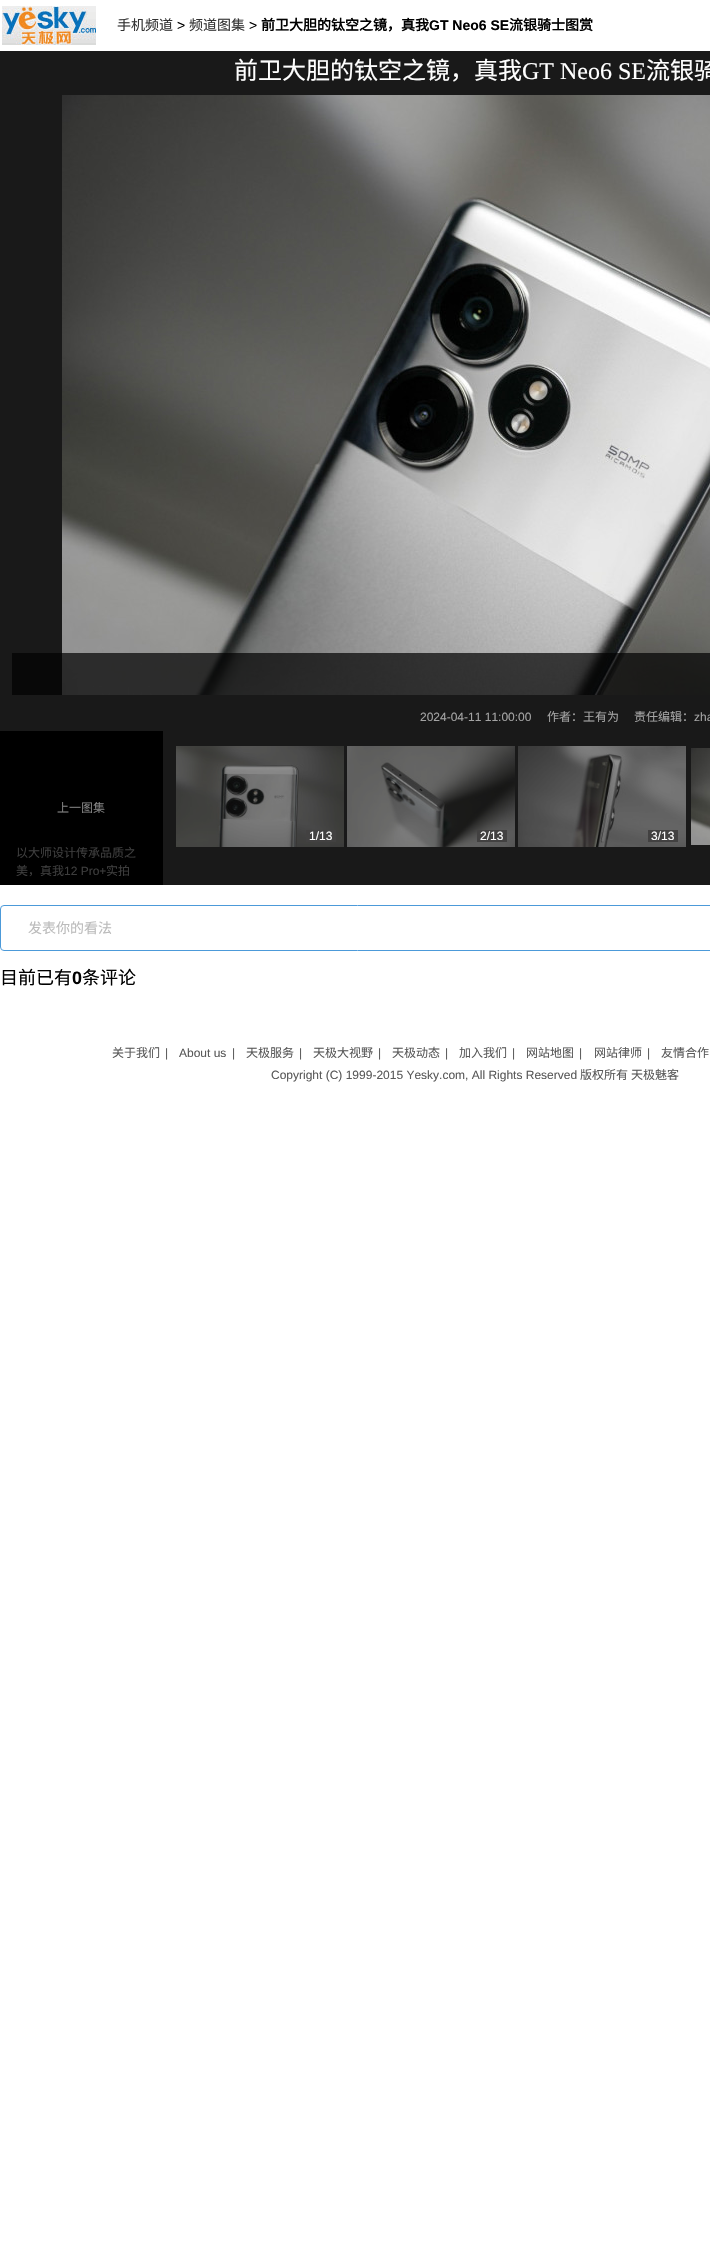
void draw(SkCanvas* canvas) {
    SkPaint paint;
    paint.setAntiAlias(true);
    canvas->clear(0xFFFFFFFF);
    canvas->drawImageRect(SkImages::DeferredFromEncodedData(SkData::MakeFromFileName("img1.png")), SkRect::MakeXYWH(2, 6, 94, 39), SkSamplingOptions());
    SkFont font1(fontMgr->matchFamilyStyle("Noto Sans CJK SC", SkFontStyle::Normal()), 14);
    font1.setSubpixel(true);
    paint.setColor(0xFF333333);
    canvas->drawString("手机频道", 117, 30, font1, paint);
    SkFont font2(fontMgr->matchFamilyStyle("Liberation Sans", SkFontStyle::Normal()), 14);
    font2.setSubpixel(true);
    paint.setColor(0xFF000000);
    canvas->drawString(">", 177, 30, font2, paint);
    paint.setColor(0xFF333333);
    canvas->drawString("频道图集", 189, 30, font1, paint);
    paint.setColor(0xFF000000);
    canvas->drawString(">", 249, 30, font2, paint);
    SkFont font3(fontMgr->matchFamilyStyle("Noto Sans CJK SC", SkFontStyle::Bold()), 14);
    font3.setSubpixel(true);
    canvas->drawString("前卫大胆的钛空之镜，真我", 261, 30, font3, paint);
    SkFont font4(fontMgr->matchFamilyStyle("Liberation Sans", SkFontStyle::Bold()), 14);
    font4.setSubpixel(true);
    canvas->drawString("GT Neo6 SE", 429, 30, font4, paint);
    canvas->drawString("流银骑士图赏", 509, 30, font3, paint);
    paint.setColor(0xFF191919);
    canvas->drawRect(SkRect::MakeXYWH(0, 51, 710, 834), paint);
    SkFont font5(fontMgr->matchFamilyStyle("Noto Sans CJK SC", SkFontStyle::Normal()), 24);
    font5.setSubpixel(true);
    paint.setColor(0xFFFFFFFF);
    canvas->drawString("前卫大胆的钛空之镜，真我", 234, 79, font5, paint);
    SkFont font6(fontMgr->matchFamilyStyle("Liberation Serif", SkFontStyle::Normal()), 24);
    font6.setSubpixel(true);
    canvas->drawString("GT Neo6 SE", 522, 79, font6, paint);
    canvas->drawString("流银骑", 646, 79, font5, paint);
    canvas->drawImageRect(SkImages::DeferredFromEncodedData(SkData::MakeFromFileName("img2.png")), SkRect::MakeXYWH(62, 95, 648, 600), SkSamplingOptions());
    paint.setColor(0xB3000000);
    canvas->drawRect(SkRect::MakeXYWH(12, 653, 698, 42), paint);
    SkFont font7(fontMgr->matchFamilyStyle("Liberation Sans", SkFontStyle::Normal()), 12);
    font7.setSubpixel(true);
    paint.setColor(0xFFA4A4A4);
    canvas->drawString("2024-04-11 11:00:00", 420, 721, font7, paint);
    SkFont font8(fontMgr->matchFamilyStyle("Noto Sans CJK SC", SkFontStyle::Normal()), 12);
    font8.setSubpixel(true);
    canvas->drawString("作者：王有为", 547, 721, font8, paint);
    canvas->drawString("责任编辑：", 634, 721, font8, paint);
    canvas->drawString("zha", 694, 721, font7, paint);
    paint.setColor(0xFF000000);
    canvas->drawRect(SkRect::MakeXYWH(0, 731, 163, 154), paint);
    paint.setColor(0xFF818181);
    canvas->drawString("上一图集", 57, 812, font8, paint);
    paint.setColor(0xFF3D3D3D);
    canvas->drawString("以大师设计传承品质之", 16, 857, font8, paint);
    canvas->drawString("美，真我", 16, 875, font8, paint);
    canvas->drawString("12 Pro+", 64, 875, font7, paint);
    canvas->drawString("实拍", 106, 875, font8, paint);
    canvas->drawImageRect(SkImages::DeferredFromEncodedData(SkData::MakeFromFileName("img3.png")), SkRect::MakeXYWH(176, 746, 168, 101), SkSamplingOptions());
    paint.setColor(0xFF424141);
    canvas->drawRect(SkRect::MakeXYWH(306, 830, 30, 12), paint);
    paint.setColor(0xFFFFFFFF);
    canvas->drawString("1/13", 309, 840, font7, paint);
    canvas->drawImageRect(SkImages::DeferredFromEncodedData(SkData::MakeFromFileName("img4.png")), SkRect::MakeXYWH(347, 746, 168, 101), SkSamplingOptions());
    paint.setColor(0xFF424141);
    canvas->drawRect(SkRect::MakeXYWH(477, 830, 30, 12), paint);
    paint.setColor(0xFFFFFFFF);
    canvas->drawString("2/13", 480, 840, font7, paint);
    canvas->drawImageRect(SkImages::DeferredFromEncodedData(SkData::MakeFromFileName("img5.png")), SkRect::MakeXYWH(518, 746, 168, 101), SkSamplingOptions());
    paint.setColor(0xFF424141);
    canvas->drawRect(SkRect::MakeXYWH(648, 830, 30, 12), paint);
    paint.setColor(0xFFFFFFFF);
    canvas->drawString("3/13", 651, 840, font7, paint);
    canvas->drawImageRect(SkImages::DeferredFromEncodedData(SkData::MakeFromFileName("img6.png")), SkRect::MakeXYWH(691, 748, 19, 97), SkSamplingOptions());
    paint.setStyle(SkPaint::kStroke_Style);
    paint.setStrokeWidth(1);
    paint.setColor(0xFF4C9AD9);
    canvas->drawRoundRect(SkRect::MakeXYWH(0.5f, 905.5f, 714, 45), 3.5f, 3.5f, paint);
    paint.setStyle(SkPaint::kFill_Style);
    paint.setColor(0xFFBBBBBB);
    canvas->drawString("发表你的看法", 28, 933, font1, paint);
    SkFont font9(fontMgr->matchFamilyStyle("Noto Sans CJK SC", SkFontStyle::Normal()), 18);
    font9.setSubpixel(true);
    paint.setColor(0xFF000000);
    canvas->drawString("目前已有", 0, 984, font9, paint);
    SkFont font10(fontMgr->matchFamilyStyle("Liberation Sans", SkFontStyle::Bold()), 18);
    font10.setSubpixel(true);
    canvas->drawString("0", 72, 984, font10, paint);
    canvas->drawString("条评论", 82, 984, font9, paint);
    paint.setColor(0xFF595959);
    canvas->drawString("关于我们", 112, 1057, font8, paint);
    canvas->drawString("|", 165, 1057, font7, paint);
    canvas->drawString("About us", 179, 1057, font7, paint);
    canvas->drawString("|", 232, 1057, font7, paint);
    canvas->drawString("天极服务", 246, 1057, font8, paint);
    canvas->drawString("|", 299, 1057, font7, paint);
    canvas->drawString("天极大视野", 313, 1057, font8, paint);
    canvas->drawString("|", 378, 1057, font7, paint);
    canvas->drawString("天极动态", 392, 1057, font8, paint);
    canvas->drawString("|", 445, 1057, font7, paint);
    canvas->drawString("加入我们", 459, 1057, font8, paint);
    canvas->drawString("|", 512, 1057, font7, paint);
    canvas->drawString("网站地图", 526, 1057, font8, paint);
    canvas->drawString("|", 579, 1057, font7, paint);
    canvas->drawString("网站律师", 594, 1057, font8, paint);
    canvas->drawString("|", 647, 1057, font7, paint);
    canvas->drawString("友情合作", 661, 1057, font8, paint);
    canvas->drawString("Copyright (C) 1999-2015 Yesky.com, All Rights Reserved", 271, 1079, font7, paint);
    canvas->drawString("版权所有", 580, 1079, font8, paint);
    canvas->drawString("天极魅客", 631, 1079, font8, paint);
}
